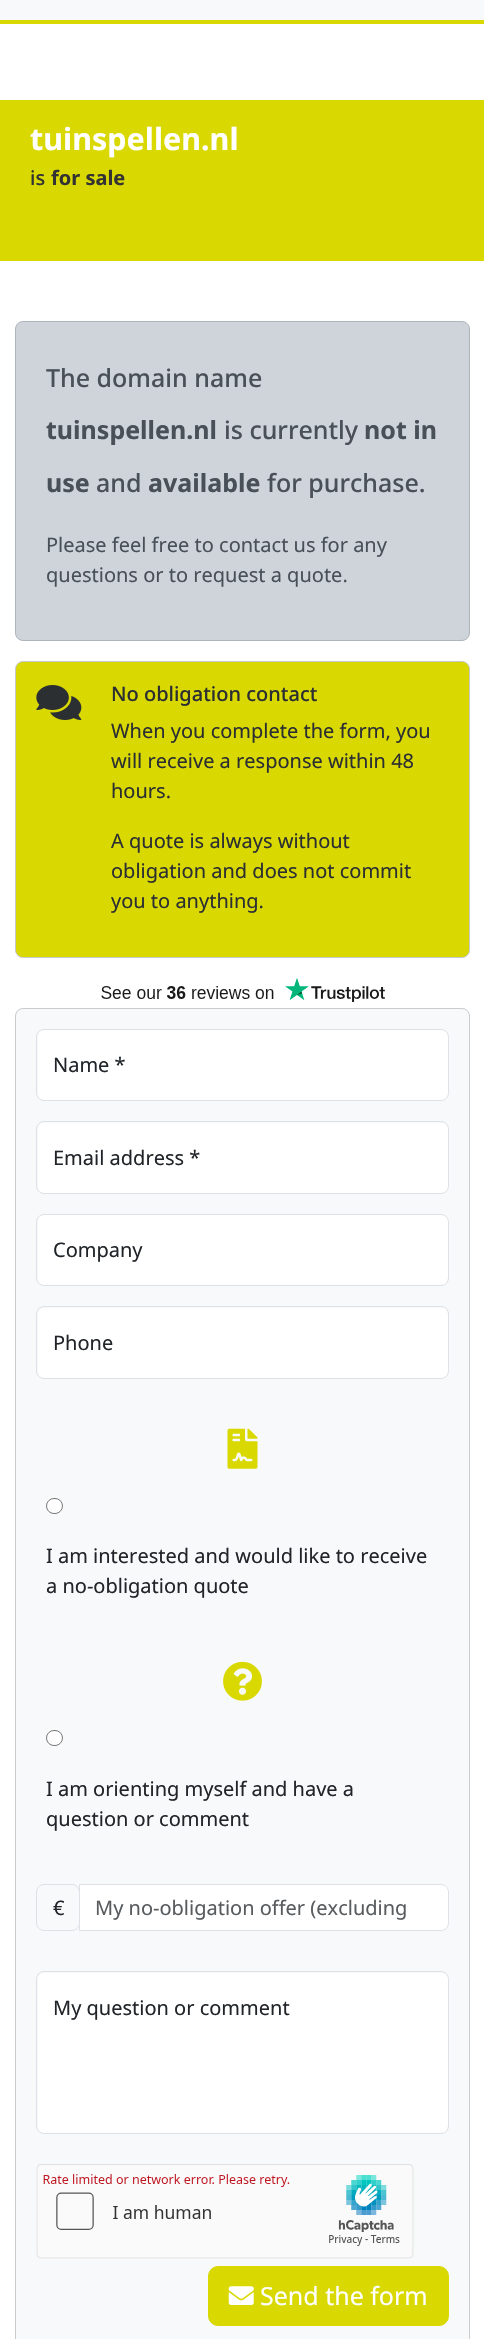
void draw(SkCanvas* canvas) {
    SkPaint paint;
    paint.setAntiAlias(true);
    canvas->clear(0xFFFFFFFF);
    paint.setColor(0xFFF8F9FA);
    canvas->drawRect(SkRect::MakeXYWH(0, 0, 484, 20), paint);
    paint.setColor(0xFFD9D801);
    canvas->drawRect(SkRect::MakeXYWH(0, 20, 484, 4), paint);
    canvas->drawRect(SkRect::MakeXYWH(0, 100, 484, 161), paint);
    SkFont font1(fontMgr->matchFamilyStyle("Noto Sans", SkFontStyle::Bold()), 30.5f);
    font1.setSubpixel(true);
    paint.setColor(0xFFFFFFFF);
    canvas->drawString("tuinspellen.nl", 30, 150, font1, paint);
    SkFont font2(fontMgr->matchFamilyStyle("Noto Sans", SkFontStyle(500, SkFontStyle::kNormal_Width, SkFontStyle::kUpright_Slant)), 20);
    font2.setSubpixel(true);
    paint.setColor(0xFF333333);
    canvas->drawString("is", 30, 185, font2, paint);
    SkFont font3(fontMgr->matchFamilyStyle("Noto Sans", SkFontStyle::Bold()), 20);
    font3.setSubpixel(true);
    canvas->drawString("for sale", 51, 185, font3, paint);
    paint.setColor(0xFFCED4DA);
    canvas->drawRoundRect(SkRect::MakeXYWH(15.5f, 321.5f, 454, 319), 7.5f, 7.5f, paint);
    paint.setStyle(SkPaint::kStroke_Style);
    paint.setStrokeWidth(1);
    paint.setColor(0xFFADB5BD);
    canvas->drawRoundRect(SkRect::MakeXYWH(15.5f, 321.5f, 454, 319), 7.5f, 7.5f, paint);
    SkFont font4(fontMgr->matchFamilyStyle("Noto Sans", SkFontStyle(500, SkFontStyle::kNormal_Width, SkFontStyle::kUpright_Slant)), 25);
    font4.setSubpixel(true);
    paint.setStyle(SkPaint::kFill_Style);
    paint.setColor(0xFF495057);
    canvas->drawString("The domain name", 46, 387, font4, paint);
    SkFont font5(fontMgr->matchFamilyStyle("Noto Sans", SkFontStyle::Bold()), 25);
    font5.setSubpixel(true);
    canvas->drawString("tuinspellen.nl", 46, 439, font5, paint);
    canvas->drawString("is currently", 224, 439, font4, paint);
    canvas->drawString("not in", 364, 439, font5, paint);
    canvas->drawString("use", 46, 492, font5, paint);
    canvas->drawString("and", 96, 492, font4, paint);
    canvas->drawString("available", 148, 492, font5, paint);
    canvas->drawString("for purchase.", 267, 492, font4, paint);
    SkFont font6(fontMgr->matchFamilyStyle("Noto Sans", SkFontStyle::Normal()), 20);
    font6.setSubpixel(true);
    canvas->drawString("Please feel free to contact us for any", 46, 552, font6, paint);
    canvas->drawString("questions or to request a quote.", 46, 582, font6, paint);
    paint.setColor(0xFFD9D801);
    canvas->drawRoundRect(SkRect::MakeXYWH(15.5f, 661.5f, 454, 296), 7.5f, 7.5f, paint);
    paint.setStyle(SkPaint::kStroke_Style);
    paint.setColor(0xFFC4C8CB);
    canvas->drawRoundRect(SkRect::MakeXYWH(15.5f, 661.5f, 454, 296), 7.5f, 7.5f, paint);
    canvas->drawImageRect(SkImages::DeferredFromEncodedData(SkData::MakeFromFileName("img1.png")), SkRect::MakeXYWH(36, 685, 46, 35), SkSamplingOptions());
    paint.setStyle(SkPaint::kFill_Style);
    paint.setColor(0xFF2B2F32);
    canvas->drawString("No obligation contact", 111, 701, font2, paint);
    canvas->drawString("When you complete the form, you", 111, 738, font6, paint);
    canvas->drawString("will receive a response within 48", 111, 768, font6, paint);
    canvas->drawString("hours.", 111, 798, font6, paint);
    canvas->drawString("A quote is always without", 111, 848, font6, paint);
    canvas->drawString("obligation and does not commit", 111, 878, font6, paint);
    canvas->drawString("you to anything.", 111, 908, font6, paint);
    canvas->drawImageRect(SkImages::DeferredFromEncodedData(SkData::MakeFromFileName("img2.png")), SkRect::MakeXYWH(101, 978, 284, 24), SkSamplingOptions());
    paint.setColor(0xFFF8F9FA);
    canvas->drawRoundRect(SkRect::MakeXYWH(15, 1008, 455, 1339), 8, 8, paint);
    paint.setStyle(SkPaint::kStroke_Style);
    paint.setColor(0x2E000000);
    canvas->drawRoundRect(SkRect::MakeXYWH(15.5f, 1008.5f, 454, 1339), 7.5f, 7.5f, paint);
    paint.setStyle(SkPaint::kFill_Style);
    paint.setColor(0xFFFFFFFF);
    canvas->drawRoundRect(SkRect::MakeXYWH(38, 1030, 410, 70), 6, 6, paint);
    paint.setStyle(SkPaint::kStroke_Style);
    paint.setColor(0xFFDEE2E6);
    canvas->drawRoundRect(SkRect::MakeXYWH(36.5f, 1029.5f, 412, 71), 7.5f, 7.5f, paint);
    paint.setStyle(SkPaint::kFill_Style);
    paint.setColor(0xFF212529);
    canvas->drawString("Name *", 53, 1072, font6, paint);
    paint.setColor(0xFFFFFFFF);
    canvas->drawRoundRect(SkRect::MakeXYWH(38, 1123, 410, 70), 6, 6, paint);
    paint.setStyle(SkPaint::kStroke_Style);
    paint.setColor(0xFFDEE2E6);
    canvas->drawRoundRect(SkRect::MakeXYWH(36.5f, 1121.5f, 412, 72), 7.5f, 7.5f, paint);
    paint.setStyle(SkPaint::kFill_Style);
    paint.setColor(0xFF212529);
    canvas->drawString("Email address *", 53, 1165, font6, paint);
    paint.setColor(0xFFFFFFFF);
    canvas->drawRoundRect(SkRect::MakeXYWH(38, 1215, 410, 70), 6, 6, paint);
    paint.setStyle(SkPaint::kStroke_Style);
    paint.setColor(0xFFDEE2E6);
    canvas->drawRoundRect(SkRect::MakeXYWH(36.5f, 1214.5f, 412, 71), 7.5f, 7.5f, paint);
    paint.setStyle(SkPaint::kFill_Style);
    paint.setColor(0xFF212529);
    canvas->drawString("Company", 53, 1257, font6, paint);
    paint.setColor(0xFFFFFFFF);
    canvas->drawRoundRect(SkRect::MakeXYWH(38, 1308, 410, 70), 6, 6, paint);
    paint.setStyle(SkPaint::kStroke_Style);
    paint.setColor(0xFFDEE2E6);
    canvas->drawRoundRect(SkRect::MakeXYWH(36.5f, 1306.5f, 412, 72), 7.5f, 7.5f, paint);
    paint.setStyle(SkPaint::kFill_Style);
    paint.setColor(0xFF212529);
    canvas->drawString("Phone", 53, 1350, font6, paint);
    canvas->drawImageRect(SkImages::DeferredFromEncodedData(SkData::MakeFromFileName("img3.png")), SkRect::MakeXYWH(227, 1428, 31, 41), SkSamplingOptions());
    paint.setColor(0xFFFFFFFF);
    canvas->drawRoundRect(SkRect::MakeXYWH(46.5f, 1498.5f, 16, 15), 7.5f, 7.5f, paint);
    paint.setStyle(SkPaint::kStroke_Style);
    paint.setColor(0xFF767676);
    canvas->drawRoundRect(SkRect::MakeXYWH(46.5f, 1498.5f, 16, 15), 7.5f, 7.5f, paint);
    paint.setStyle(SkPaint::kFill_Style);
    paint.setColor(0xFF212529);
    canvas->drawString("I am interested and would like to receive", 46, 1563, font6, paint);
    canvas->drawString("a no-obligation quote", 46, 1593, font6, paint);
    canvas->drawImageRect(SkImages::DeferredFromEncodedData(SkData::MakeFromFileName("img4.png")), SkRect::MakeXYWH(223, 1661, 39, 40), SkSamplingOptions());
    paint.setColor(0xFFFFFFFF);
    canvas->drawRoundRect(SkRect::MakeXYWH(46.5f, 1730.5f, 16, 15), 7.5f, 7.5f, paint);
    paint.setStyle(SkPaint::kStroke_Style);
    paint.setColor(0xFF767676);
    canvas->drawRoundRect(SkRect::MakeXYWH(46.5f, 1730.5f, 16, 15), 7.5f, 7.5f, paint);
    paint.setStyle(SkPaint::kFill_Style);
    paint.setColor(0xFF212529);
    canvas->drawString("I am orienting myself and have a", 46, 1796, font6, paint);
    canvas->drawString("question or comment", 46, 1826, font6, paint);
    paint.setStyle(SkPaint::kStroke_Style);
    paint.setColor(0xFFDEE2E6);
    canvas->drawRoundRect(SkRect::MakeXYWH(36.5f, 1884.5f, 43, 46), 7.5f, 7.5f, paint);
    paint.setStyle(SkPaint::kFill_Style);
    paint.setColor(0xFF212529);
    canvas->drawString("€", 53, 1915, font6, paint);
    paint.setColor(0xFFFFFFFF);
    canvas->drawPath(SkPathBuilder().moveTo(80, 1885).lineTo(442, 1885).cubicTo(445.5f, 1885, 448, 1887.5f, 448, 1891).lineTo(448, 1924).cubicTo(448, 1927.5f, 445.5f, 1930, 442, 1930).lineTo(80, 1930).close().detach(), paint);
    paint.setStyle(SkPaint::kStroke_Style);
    paint.setColor(0xFFDEE2E6);
    canvas->drawPath(SkPathBuilder().moveTo(79.5f, 1884.5f).lineTo(441, 1884.5f).cubicTo(445, 1884.5f, 448.5f, 1888, 448.5f, 1892).lineTo(448.5f, 1923).cubicTo(448.5f, 1927, 445, 1930.5f, 441, 1930.5f).lineTo(79.5f, 1930.5f).close().detach(), paint);
    paint.setStyle(SkPaint::kFill_Style);
    paint.setColor(0xFF595C5F);
    canvas->drawString("My no-obligation offer (excluding", 95, 1915, font6, paint);
    paint.setColor(0xFFFFFFFF);
    canvas->drawRoundRect(SkRect::MakeXYWH(38, 1973, 410, 160), 6, 6, paint);
    paint.setStyle(SkPaint::kStroke_Style);
    paint.setColor(0xFFDEE2E6);
    canvas->drawRoundRect(SkRect::MakeXYWH(36.5f, 1971.5f, 412, 162), 7.5f, 7.5f, paint);
    paint.setStyle(SkPaint::kFill_Style);
    paint.setColor(0xFF212529);
    canvas->drawString("My question or comment", 53, 2015, font6, paint);
    canvas->drawImageRect(SkImages::DeferredFromEncodedData(SkData::MakeFromFileName("img5.png")), SkRect::MakeXYWH(36, 2164, 378, 95), SkSamplingOptions());
    paint.setColor(0xFFD9D801);
    canvas->drawRoundRect(SkRect::MakeXYWH(208.5f, 2266.5f, 240, 59), 9.5f, 9.5f, paint);
    paint.setStyle(SkPaint::kStroke_Style);
    canvas->drawRoundRect(SkRect::MakeXYWH(208.5f, 2266.5f, 240, 59), 9.5f, 9.5f, paint);
    canvas->drawImageRect(SkImages::DeferredFromEncodedData(SkData::MakeFromFileName("img6.png")), SkRect::MakeXYWH(228, 2286, 26, 19), SkSamplingOptions());
    SkFont font7(fontMgr->matchFamilyStyle("Noto Sans", SkFontStyle::Normal()), 25);
    font7.setSubpixel(true);
    paint.setStyle(SkPaint::kFill_Style);
    paint.setColor(0xFFFFFFFF);
    canvas->drawString("Send the form", 260, 2305, font7, paint);
}
